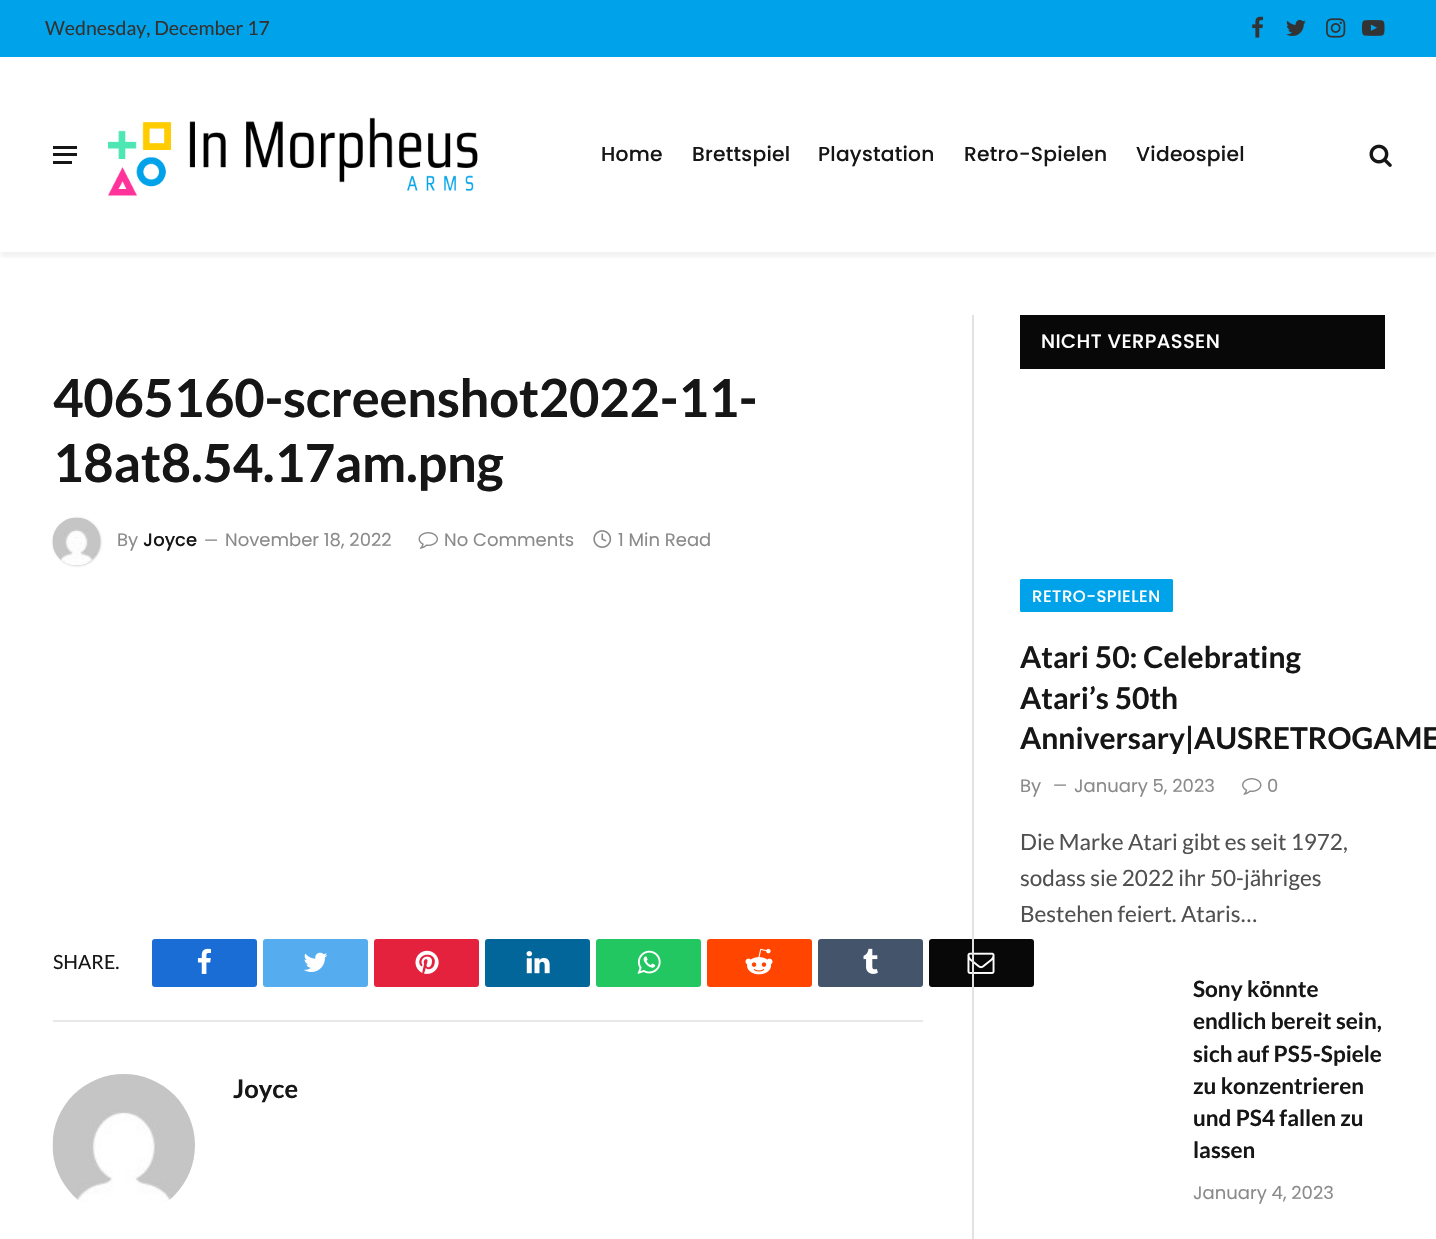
void draw(SkCanvas* canvas) {
    SkPaint paint;
    paint.setAntiAlias(true);
    auto spacedText = [&](const char* s, float x, float y, const SkFont& font, const SkPaint& ink, float letter, float word) {
        std::vector<SkGlyphID> glyphs(font.countText(s, strlen(s), SkTextEncoding::kUTF8));
        std::vector<float> xs(glyphs.size());
        font.textToGlyphs(s, strlen(s), SkTextEncoding::kUTF8, glyphs);
        font.getXPos(glyphs, xs, x);
        float extra = 0;
        for (size_t i = 0; i < glyphs.size(); i++) {
            xs[i] += extra;
            extra += letter + word * (glyphs[i] == font.unicharToGlyph(' '));
        }
        canvas->drawTextBlob(SkTextBlob::MakeFromPosHGlyphs(glyphs, xs, y, font), 0, 0, ink);
    };
    canvas->clear(0xFFFFFFFF);
    canvas->save();
    canvas->clipRect(SkRect::MakeXYWH(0, 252, 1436, 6));
    paint.setColor(0x0F0A0A0A);
    paint.setMaskFilter(SkMaskFilter::MakeBlur(kNormal_SkBlurStyle, 3));
    canvas->drawRect(SkRect::MakeXYWH(0, 5, 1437, 252), paint);
    paint.setMaskFilter(nullptr);
    canvas->restore();
    paint.setColor(0xFF00A2E9);
    canvas->drawRect(SkRect::MakeXYWH(0, 0, 1436, 57), paint);
    SkFont font1(fontMgr->matchFamilyStyle("Lato", SkFontStyle::Normal()), 19.5f);
    font1.setSubpixel(true);
    paint.setColor(0xFF333333);
    canvas->drawString("Wednesday, December 17", 45, 35, font1, paint);
    canvas->drawImageRect(SkImages::DeferredFromEncodedData(SkData::MakeFromFileName("img1.png")), SkRect::MakeXYWH(1252, 16, 12, 22), SkSamplingOptions());
    canvas->drawImageRect(SkImages::DeferredFromEncodedData(SkData::MakeFromFileName("img2.png")), SkRect::MakeXYWH(1286, 19, 20, 17), SkSamplingOptions());
    canvas->drawImageRect(SkImages::DeferredFromEncodedData(SkData::MakeFromFileName("img3.png")), SkRect::MakeXYWH(1326, 18, 20, 20), SkSamplingOptions());
    canvas->drawImageRect(SkImages::DeferredFromEncodedData(SkData::MakeFromFileName("img4.png")), SkRect::MakeXYWH(1362, 20, 23, 16), SkSamplingOptions());
    paint.setColor(0xFF161616);
    canvas->drawRect(SkRect::MakeXYWH(53, 161, 19, 3), paint);
    canvas->drawRect(SkRect::MakeXYWH(53, 146, 24, 3), paint);
    canvas->drawRect(SkRect::MakeXYWH(53, 153, 24, 3), paint);
    canvas->drawImageRect(SkImages::DeferredFromEncodedData(SkData::MakeFromFileName("img5.png")), SkRect::MakeXYWH(108, 117, 370, 79), SkSamplingOptions());
    SkFont font2(fontMgr->matchFamilyStyle("Poppins", SkFontStyle(500, SkFontStyle::kNormal_Width, SkFontStyle::kUpright_Slant)), 20.25f);
    font2.setSubpixel(true);
    spacedText("Home", 601, 161, font2, paint, 0.25f, 0);
    spacedText("Brettspiel", 692, 161, font2, paint, 0.25f, 0);
    spacedText("Playstation", 818, 161, font2, paint, 0.25f, 0);
    spacedText("Retro-Spielen", 964, 161, font2, paint, 0.25f, 0);
    spacedText("Videospiel", 1136, 161, font2, paint, 0.25f, 0);
    canvas->drawImageRect(SkImages::DeferredFromEncodedData(SkData::MakeFromFileName("img6.png")), SkRect::MakeXYWH(1369, 144, 23, 23), SkSamplingOptions());
    SkFont font3(fontMgr->matchFamilyStyle("Lato", SkFontStyle::Bold()), 52.5f);
    font3.setSubpixel(true);
    spacedText("4065160-screenshot2022-11-", 53, 417, font3, paint, -0.25f, 0);
    spacedText("18at8.54.17am.png", 53, 482, font3, paint, -0.25f, 0);
    paint.setColor(0x33000000);
    paint.setMaskFilter(SkMaskFilter::MakeBlur(kNormal_SkBlurStyle, 1));
    canvas->drawRoundRect(SkRect::MakeXYWH(53, 518, 48, 48), 24, 24, paint);
    paint.setMaskFilter(nullptr);
    canvas->drawImageRect(SkImages::DeferredFromEncodedData(SkData::MakeFromFileName("img7.png")), SkRect::MakeXYWH(52, 517, 49, 49), SkSamplingOptions());
    SkFont font4(fontMgr->matchFamilyStyle("Poppins", SkFontStyle::Normal()), 18);
    font4.setSubpixel(true);
    paint.setColor(0xFF8A8A8A);
    canvas->drawString("By", 117, 546, font4, paint);
    SkFont font5(fontMgr->matchFamilyStyle("Poppins", SkFontStyle(500, SkFontStyle::kNormal_Width, SkFontStyle::kUpright_Slant)), 18);
    font5.setSubpixel(true);
    paint.setColor(0xFF161616);
    canvas->drawString("Joyce", 143, 546, font5, paint);
    SkFont font6(fontMgr->matchFamilyStyle("Poppins", SkFontStyle::Normal()), 16);
    font6.setSubpixel(true);
    paint.setColor(0xFF8A8A8A);
    canvas->drawString("—", 204, 546, font6, paint);
    canvas->drawString("November 18, 2022", 225, 546, font4, paint);
    canvas->drawImageRect(SkImages::DeferredFromEncodedData(SkData::MakeFromFileName("img8.png")), SkRect::MakeXYWH(418, 532, 20, 17), SkSamplingOptions());
    canvas->drawString("No Comments", 444, 546, font4, paint);
    canvas->drawImageRect(SkImages::DeferredFromEncodedData(SkData::MakeFromFileName("img9.png")), SkRect::MakeXYWH(593, 530, 19, 18), SkSamplingOptions());
    canvas->drawString("1 Min Read", 618, 546, font4, paint);
    paint.setColor(0xFF161616);
    canvas->drawString("SHARE.", 53, 969, font1, paint);
    paint.setColor(0xFF1A6DD4);
    canvas->drawRoundRect(SkRect::MakeXYWH(152, 939, 105, 48), 3, 3, paint);
    canvas->drawImageRect(SkImages::DeferredFromEncodedData(SkData::MakeFromFileName("img10.png")), SkRect::MakeXYWH(197, 948, 14, 26), SkSamplingOptions());
    paint.setColor(0xFF55ACEF);
    canvas->drawRoundRect(SkRect::MakeXYWH(263, 939, 105, 48), 3, 3, paint);
    canvas->drawImageRect(SkImages::DeferredFromEncodedData(SkData::MakeFromFileName("img11.png")), SkRect::MakeXYWH(303, 952, 25, 20), SkSamplingOptions());
    paint.setColor(0xFFE4223E);
    canvas->drawRoundRect(SkRect::MakeXYWH(374, 939, 105, 48), 3, 3, paint);
    canvas->drawImageRect(SkImages::DeferredFromEncodedData(SkData::MakeFromFileName("img12.png")), SkRect::MakeXYWH(415, 950, 24, 24), SkSamplingOptions());
    paint.setColor(0xFF02669A);
    canvas->drawRoundRect(SkRect::MakeXYWH(485, 939, 105, 48), 3, 3, paint);
    canvas->drawImageRect(SkImages::DeferredFromEncodedData(SkData::MakeFromFileName("img13.png")), SkRect::MakeXYWH(526, 951, 24, 23), SkSamplingOptions());
    paint.setColor(0xFF23C761);
    canvas->drawRoundRect(SkRect::MakeXYWH(596, 939, 105, 48), 3, 3, paint);
    canvas->drawImageRect(SkImages::DeferredFromEncodedData(SkData::MakeFromFileName("img14.png")), SkRect::MakeXYWH(637, 950, 24, 24), SkSamplingOptions());
    paint.setColor(0xFFFF4500);
    canvas->drawRoundRect(SkRect::MakeXYWH(707, 939, 105, 48), 3, 3, paint);
    canvas->drawImageRect(SkImages::DeferredFromEncodedData(SkData::MakeFromFileName("img15.png")), SkRect::MakeXYWH(745, 948, 28, 27), SkSamplingOptions());
    paint.setColor(0xFF44546B);
    canvas->drawRoundRect(SkRect::MakeXYWH(818, 939, 105, 48), 3, 3, paint);
    canvas->drawImageRect(SkImages::DeferredFromEncodedData(SkData::MakeFromFileName("img16.png")), SkRect::MakeXYWH(863, 948, 15, 26), SkSamplingOptions());
    paint.setColor(0xFF080808);
    canvas->drawRoundRect(SkRect::MakeXYWH(929, 939, 105, 48), 3, 3, paint);
    canvas->drawImageRect(SkImages::DeferredFromEncodedData(SkData::MakeFromFileName("img17.png")), SkRect::MakeXYWH(967, 952, 28, 22), SkSamplingOptions());
    paint.setColor(0xFFE8E8E8);
    canvas->drawRect(SkRect::MakeXYWH(53, 1020, 870, 2), paint);
    canvas->drawImageRect(SkImages::DeferredFromEncodedData(SkData::MakeFromFileName("img18.png")), SkRect::MakeXYWH(52, 1074, 143, 129), SkSamplingOptions());
    SkFont font7(fontMgr->matchFamilyStyle("Lato", SkFontStyle::Bold()), 25.5f);
    font7.setSubpixel(true);
    paint.setColor(0xFF161616);
    canvas->drawString("Joyce", 233, 1098, font7, paint);
    paint.setColor(0xFFE2E2E2);
    canvas->drawRect(SkRect::MakeXYWH(972, 315, 2, 924), paint);
    paint.setColor(0xFF080808);
    canvas->drawRect(SkRect::MakeXYWH(1020, 315, 365, 54), paint);
    SkFont font8(fontMgr->matchFamilyStyle("Poppins", SkFontStyle(500, SkFontStyle::kNormal_Width, SkFontStyle::kUpright_Slant)), 19.5f);
    font8.setSubpixel(true);
    paint.setColor(0xFFFFFFFF);
    spacedText("NICHT VERPASSEN", 1041, 348, font8, paint, 0.4f, 0);
    paint.setColor(0xFF00A2E9);
    canvas->drawRoundRect(SkRect::MakeXYWH(1020, 579, 153, 33), 1.5f, 1.5f, paint);
    SkFont font9(fontMgr->matchFamilyStyle("Poppins", SkFontStyle(500, SkFontStyle::kNormal_Width, SkFontStyle::kUpright_Slant)), 16.5f);
    font9.setSubpixel(true);
    paint.setColor(0xFFFFFFFF);
    spacedText("RETRO-SPIELEN", 1032, 602, font9, paint, 0.5f, 0);
    SkFont font10(fontMgr->matchFamilyStyle("Lato", SkFontStyle::Bold()), 30);
    font10.setSubpixel(true);
    paint.setColor(0xFF161616);
    canvas->drawString("Atari 50: Celebrating", 1020, 668, font10, paint);
    canvas->drawString("Atari’s 50th", 1020, 709, font10, paint);
    canvas->drawString("Anniversary|AUSRETROGAME", 1020, 749, font10, paint);
    paint.setColor(0xFF8A8A8A);
    canvas->drawString("By", 1020, 792, font4, paint);
    canvas->drawString("—", 1053, 791, font6, paint);
    canvas->drawString("January 5, 2023", 1074, 792, font4, paint);
    canvas->drawImageRect(SkImages::DeferredFromEncodedData(SkData::MakeFromFileName("img19.png")), SkRect::MakeXYWH(1242, 778, 20, 17), SkSamplingOptions());
    canvas->drawString("0", 1267, 792, font4, paint);
    SkFont font11(fontMgr->matchFamilyStyle("Lato", SkFontStyle::Normal()), 22.5f);
    font11.setSubpixel(true);
    paint.setColor(0xFF505050);
    canvas->drawString("Die Marke Atari gibt es seit 1972,", 1020, 850, font11, paint);
    canvas->drawString("sodass sie 2022 ihr 50-jähriges", 1020, 886, font11, paint);
    canvas->drawString("Bestehen feiert. Ataris…", 1020, 922, font11, paint);
    SkFont font12(fontMgr->matchFamilyStyle("Lato", SkFontStyle::Bold()), 22.5f);
    font12.setSubpixel(true);
    paint.setColor(0xFF161616);
    canvas->drawString("Sony könnte", 1193, 997, font12, paint);
    canvas->drawString("endlich bereit sein,", 1193, 1029, font12, paint);
    canvas->drawString("sich auf PS5-Spiele", 1193, 1062, font12, paint);
    canvas->drawString("zu konzentrieren", 1193, 1094, font12, paint);
    canvas->drawString("und PS4 fallen zu", 1193, 1126, font12, paint);
    canvas->drawString("lassen", 1193, 1158, font12, paint);
    paint.setColor(0xFF8A8A8A);
    canvas->drawString("January 4, 2023", 1193, 1199, font4, paint);
}
